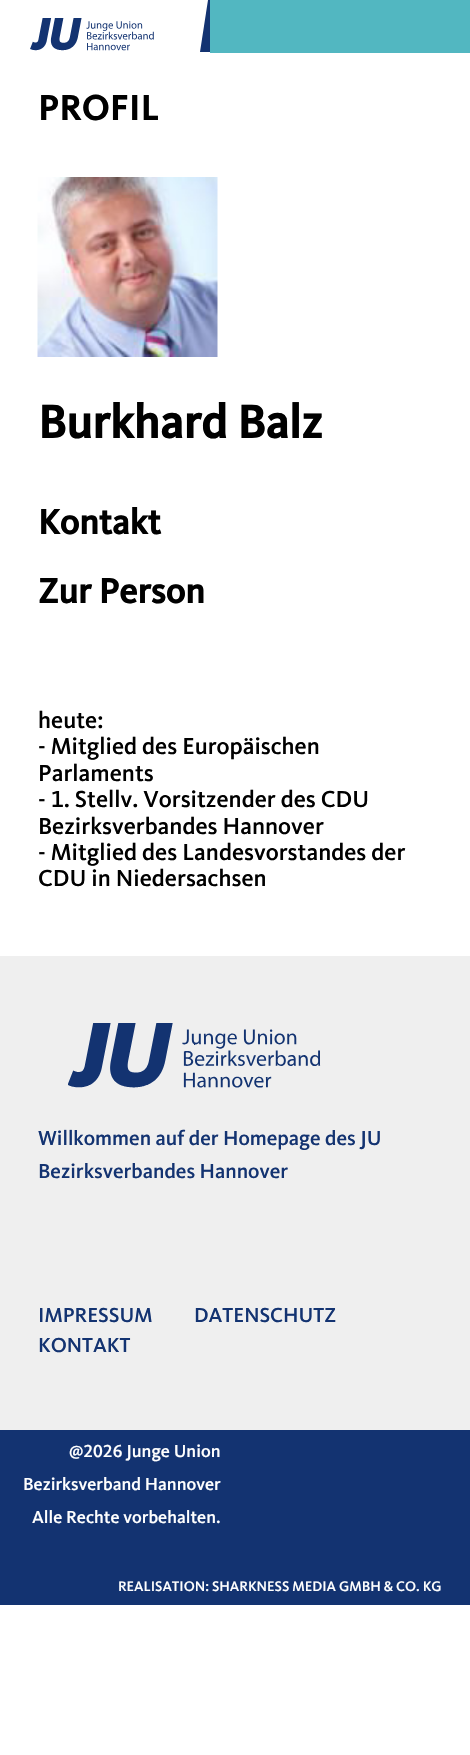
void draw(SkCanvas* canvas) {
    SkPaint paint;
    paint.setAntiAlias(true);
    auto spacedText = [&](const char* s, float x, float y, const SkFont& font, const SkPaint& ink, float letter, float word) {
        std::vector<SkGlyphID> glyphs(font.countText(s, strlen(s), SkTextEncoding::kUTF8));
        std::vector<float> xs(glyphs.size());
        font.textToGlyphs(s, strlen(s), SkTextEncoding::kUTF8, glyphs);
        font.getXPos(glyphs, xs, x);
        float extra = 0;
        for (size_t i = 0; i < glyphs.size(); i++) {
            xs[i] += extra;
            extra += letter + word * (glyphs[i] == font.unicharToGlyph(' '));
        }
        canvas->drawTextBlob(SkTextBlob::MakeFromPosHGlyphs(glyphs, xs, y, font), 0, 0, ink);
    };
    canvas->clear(0xFFFFFFFF);
    canvas->drawImageRect(SkImages::DeferredFromEncodedData(SkData::MakeFromFileName("img1.png")), SkRect::MakeXYWH(30, 18, 124, 33), SkSamplingOptions());
    paint.setColor(0xFF133371);
    canvas->drawPath(SkPathBuilder().moveTo(210, 0).lineTo(208, 0).lineTo(200, 52).lineTo(210, 52).close().detach(), paint);
    paint.setColor(0xFF52B7C1);
    canvas->drawRect(SkRect::MakeXYWH(210, 0, 260, 53), paint);
    SkFont font1(fontMgr->matchFamilyStyle("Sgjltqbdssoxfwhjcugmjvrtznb", SkFontStyle::Bold()), 36);
    font1.setSubpixel(true);
    paint.setColor(0xFF000000);
    spacedText("PROFIL", 38, 120, font1, paint, 0.75f, 0);
    canvas->drawImageRect(SkImages::DeferredFromEncodedData(SkData::MakeFromFileName("img2.png")), SkRect::MakeXYWH(37, 177, 181, 180), SkSamplingOptions());
    SkFont font2(fontMgr->matchFamilyStyle("Sgjltqbdssoxfwhjcugmjvrtznb", SkFontStyle::Bold()), 48);
    font2.setSubpixel(true);
    canvas->drawString("Burkhard Balz", 38, 438, font2, paint);
    canvas->drawString("Kontakt", 38, 534, font1, paint);
    canvas->drawString("Zur Person", 38, 603, font1, paint);
    SkFont font3(fontMgr->matchFamilyStyle("Sgjltqbdssoxfwhjcugmjvrtznb", SkFontStyle(500, SkFontStyle::kNormal_Width, SkFontStyle::kUpright_Slant)), 24);
    font3.setSubpixel(true);
    canvas->drawString("heute:", 38, 728, font3, paint);
    canvas->drawString("- Mitglied des Europäischen", 38, 754, font3, paint);
    canvas->drawString("Parlaments", 38, 781, font3, paint);
    canvas->drawString("- 1. Stellv. Vorsitzender des CDU", 38, 807, font3, paint);
    canvas->drawString("Bezirksverbandes Hannover", 38, 834, font3, paint);
    canvas->drawString("- Mitglied des Landesvorstandes der", 38, 860, font3, paint);
    canvas->drawString("CDU in Niedersachsen", 38, 886, font3, paint);
    paint.setColor(0xFFEFEFEF);
    canvas->drawRect(SkRect::MakeXYWH(0, 956, 470, 474), paint);
    canvas->drawImageRect(SkImages::DeferredFromEncodedData(SkData::MakeFromFileName("img3.png")), SkRect::MakeXYWH(68, 1023, 253, 65), SkSamplingOptions());
    SkFont font4(fontMgr->matchFamilyStyle("Sgjltqbdssoxfwhjcugmjvrtznb", SkFontStyle(500, SkFontStyle::kNormal_Width, SkFontStyle::kUpright_Slant)), 21);
    font4.setSubpixel(true);
    paint.setColor(0xFF133371);
    canvas->drawString("Willkommen auf der Homepage des JU", 38, 1145, font4, paint);
    canvas->drawString("Bezirksverbandes Hannover", 38, 1178, font4, paint);
    canvas->drawString("IMPRESSUM", 38, 1322, font4, paint);
    canvas->drawString("DATENSCHUTZ", 194, 1322, font4, paint);
    canvas->drawString("KONTAKT", 38, 1352, font4, paint);
    canvas->drawRect(SkRect::MakeXYWH(0, 1430, 470, 175), paint);
    SkFont font5(fontMgr->matchFamilyStyle("Sgjltqbdssoxfwhjcugmjvrtznb", SkFontStyle(500, SkFontStyle::kNormal_Width, SkFontStyle::kUpright_Slant)), 18);
    font5.setSubpixel(true);
    paint.setColor(0xFFFFFFFF);
    canvas->drawString("@2026 Junge Union", 69, 1457, font5, paint);
    canvas->drawString("Bezirksverband Hannover", 23, 1490, font5, paint);
    canvas->drawString("Alle Rechte vorbehalten.", 32, 1523, font5, paint);
    SkFont font6(fontMgr->matchFamilyStyle("Sgjltqbdssoxfwhjcugmjvrtznb", SkFontStyle(500, SkFontStyle::kNormal_Width, SkFontStyle::kUpright_Slant)), 14.4f);
    font6.setSubpixel(true);
    canvas->drawString("REALISATION: SHARKNESS MEDIA GMBH & CO. KG", 118, 1591, font6, paint);
}
